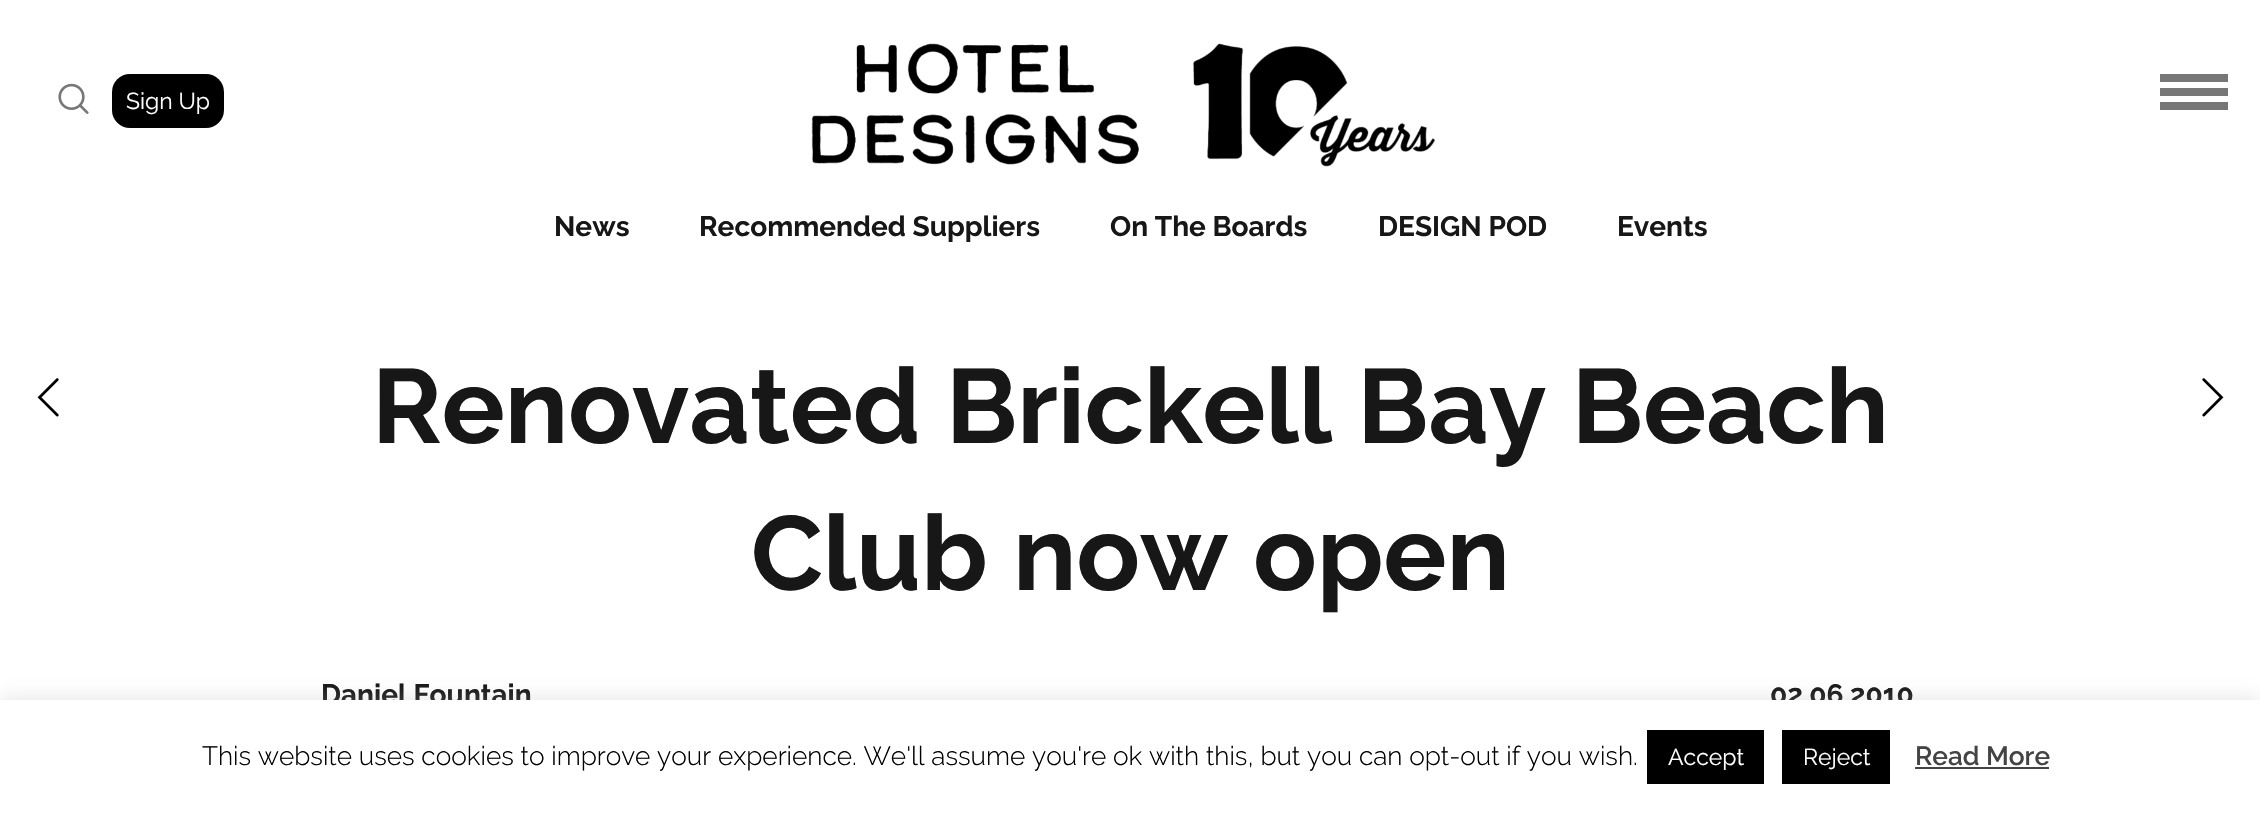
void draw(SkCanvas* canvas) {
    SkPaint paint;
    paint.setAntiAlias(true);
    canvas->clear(0xFFFFFFFF);
    canvas->drawImageRect(SkImages::DeferredFromEncodedData(SkData::MakeFromFileName("img1.png")), SkRect::MakeXYWH(58, 83, 31, 31), SkSamplingOptions());
    paint.setColor(0xFF000000);
    canvas->drawRoundRect(SkRect::MakeXYWH(112, 74, 112, 54), 18, 18, paint);
    SkFont font1(fontMgr->matchFamilyStyle("Raleway", SkFontStyle::Normal()), 23);
    font1.setSubpixel(true);
    paint.setColor(0xFFFFFFFF);
    canvas->drawString("Sign Up", 126, 109, font1, paint);
    canvas->drawImageRect(SkImages::DeferredFromEncodedData(SkData::MakeFromFileName("img2.png")), SkRect::MakeXYWH(811, 43, 624, 124), SkSamplingOptions());
    paint.setColor(0xFF777777);
    canvas->drawRect(SkRect::MakeXYWH(2160, 74, 68, 8), paint);
    canvas->drawRect(SkRect::MakeXYWH(2160, 88, 68, 8), paint);
    canvas->drawRect(SkRect::MakeXYWH(2160, 102, 68, 8), paint);
    SkFont font2(fontMgr->matchFamilyStyle("Raleway", SkFontStyle::Bold()), 28);
    font2.setSubpixel(true);
    paint.setColor(0xFF171717);
    canvas->drawString("News", 554, 236, font2, paint);
    canvas->drawString("Recommended Suppliers", 699, 236, font2, paint);
    canvas->drawString("On The Boards", 1110, 236, font2, paint);
    canvas->drawString("DESIGN POD", 1378, 236, font2, paint);
    canvas->drawString("Events", 1617, 236, font2, paint);
    SkFont font3(fontMgr->matchFamilyStyle("Raleway", SkFontStyle::Bold()), 105);
    font3.setSubpixel(true);
    canvas->drawString("Renovated Brickell Bay Beach", 372, 443, font3, paint);
    canvas->drawString("Club now open", 751, 590, font3, paint);
    canvas->drawString("Daniel Fountain", 321, 704, font2, paint);
    canvas->drawString("02.06.2010", 1770, 704, font2, paint);
    canvas->drawImageRect(SkImages::DeferredFromEncodedData(SkData::MakeFromFileName("img3.png")), SkRect::MakeXYWH(37, 378, 22, 39), SkSamplingOptions());
    canvas->drawImageRect(SkImages::DeferredFromEncodedData(SkData::MakeFromFileName("img4.png")), SkRect::MakeXYWH(2202, 378, 22, 39), SkSamplingOptions());
    paint.setColor(0x4DACABAB);
    paint.setMaskFilter(SkMaskFilter::MakeBlur(kNormal_SkBlurStyle, 9));
    canvas->drawRect(SkRect::MakeXYWH(0, 698, 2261, 114), paint);
    paint.setMaskFilter(nullptr);
    paint.setColor(0xFFFFFFFF);
    canvas->drawRect(SkRect::MakeXYWH(0, 700, 2260, 113), paint);
    SkFont font4(fontMgr->matchFamilyStyle("Raleway", SkFontStyle(300, SkFontStyle::kNormal_Width, SkFontStyle::kUpright_Slant)), 26.25f);
    font4.setSubpixel(true);
    paint.setColor(0xFF000000);
    canvas->drawString("This website uses cookies to improve your experience. We'll assume you're ok with this, but you can opt-out if you wish.", 202, 765, font4, paint);
    canvas->drawRect(SkRect::MakeXYWH(1647, 730, 117, 54), paint);
    paint.setColor(0xFFFFFFFF);
    canvas->drawString("Accept", 1668, 765, font1, paint);
    paint.setColor(0xFF000000);
    canvas->drawRect(SkRect::MakeXYWH(1782, 730, 108, 54), paint);
    paint.setColor(0xFFFFFFFF);
    canvas->drawString("Reject", 1803, 765, font1, paint);
    SkFont font5(fontMgr->matchFamilyStyle("Raleway", SkFontStyle(600, SkFontStyle::kNormal_Width, SkFontStyle::kUpright_Slant)), 26.25f);
    font5.setSubpixel(true);
    paint.setColor(0xFF444444);
    canvas->drawString("Read More", 1915, 765, font5, paint);
    canvas->drawRect(SkRect::MakeXYWH(1915, 767, 134, 2), paint);
}
